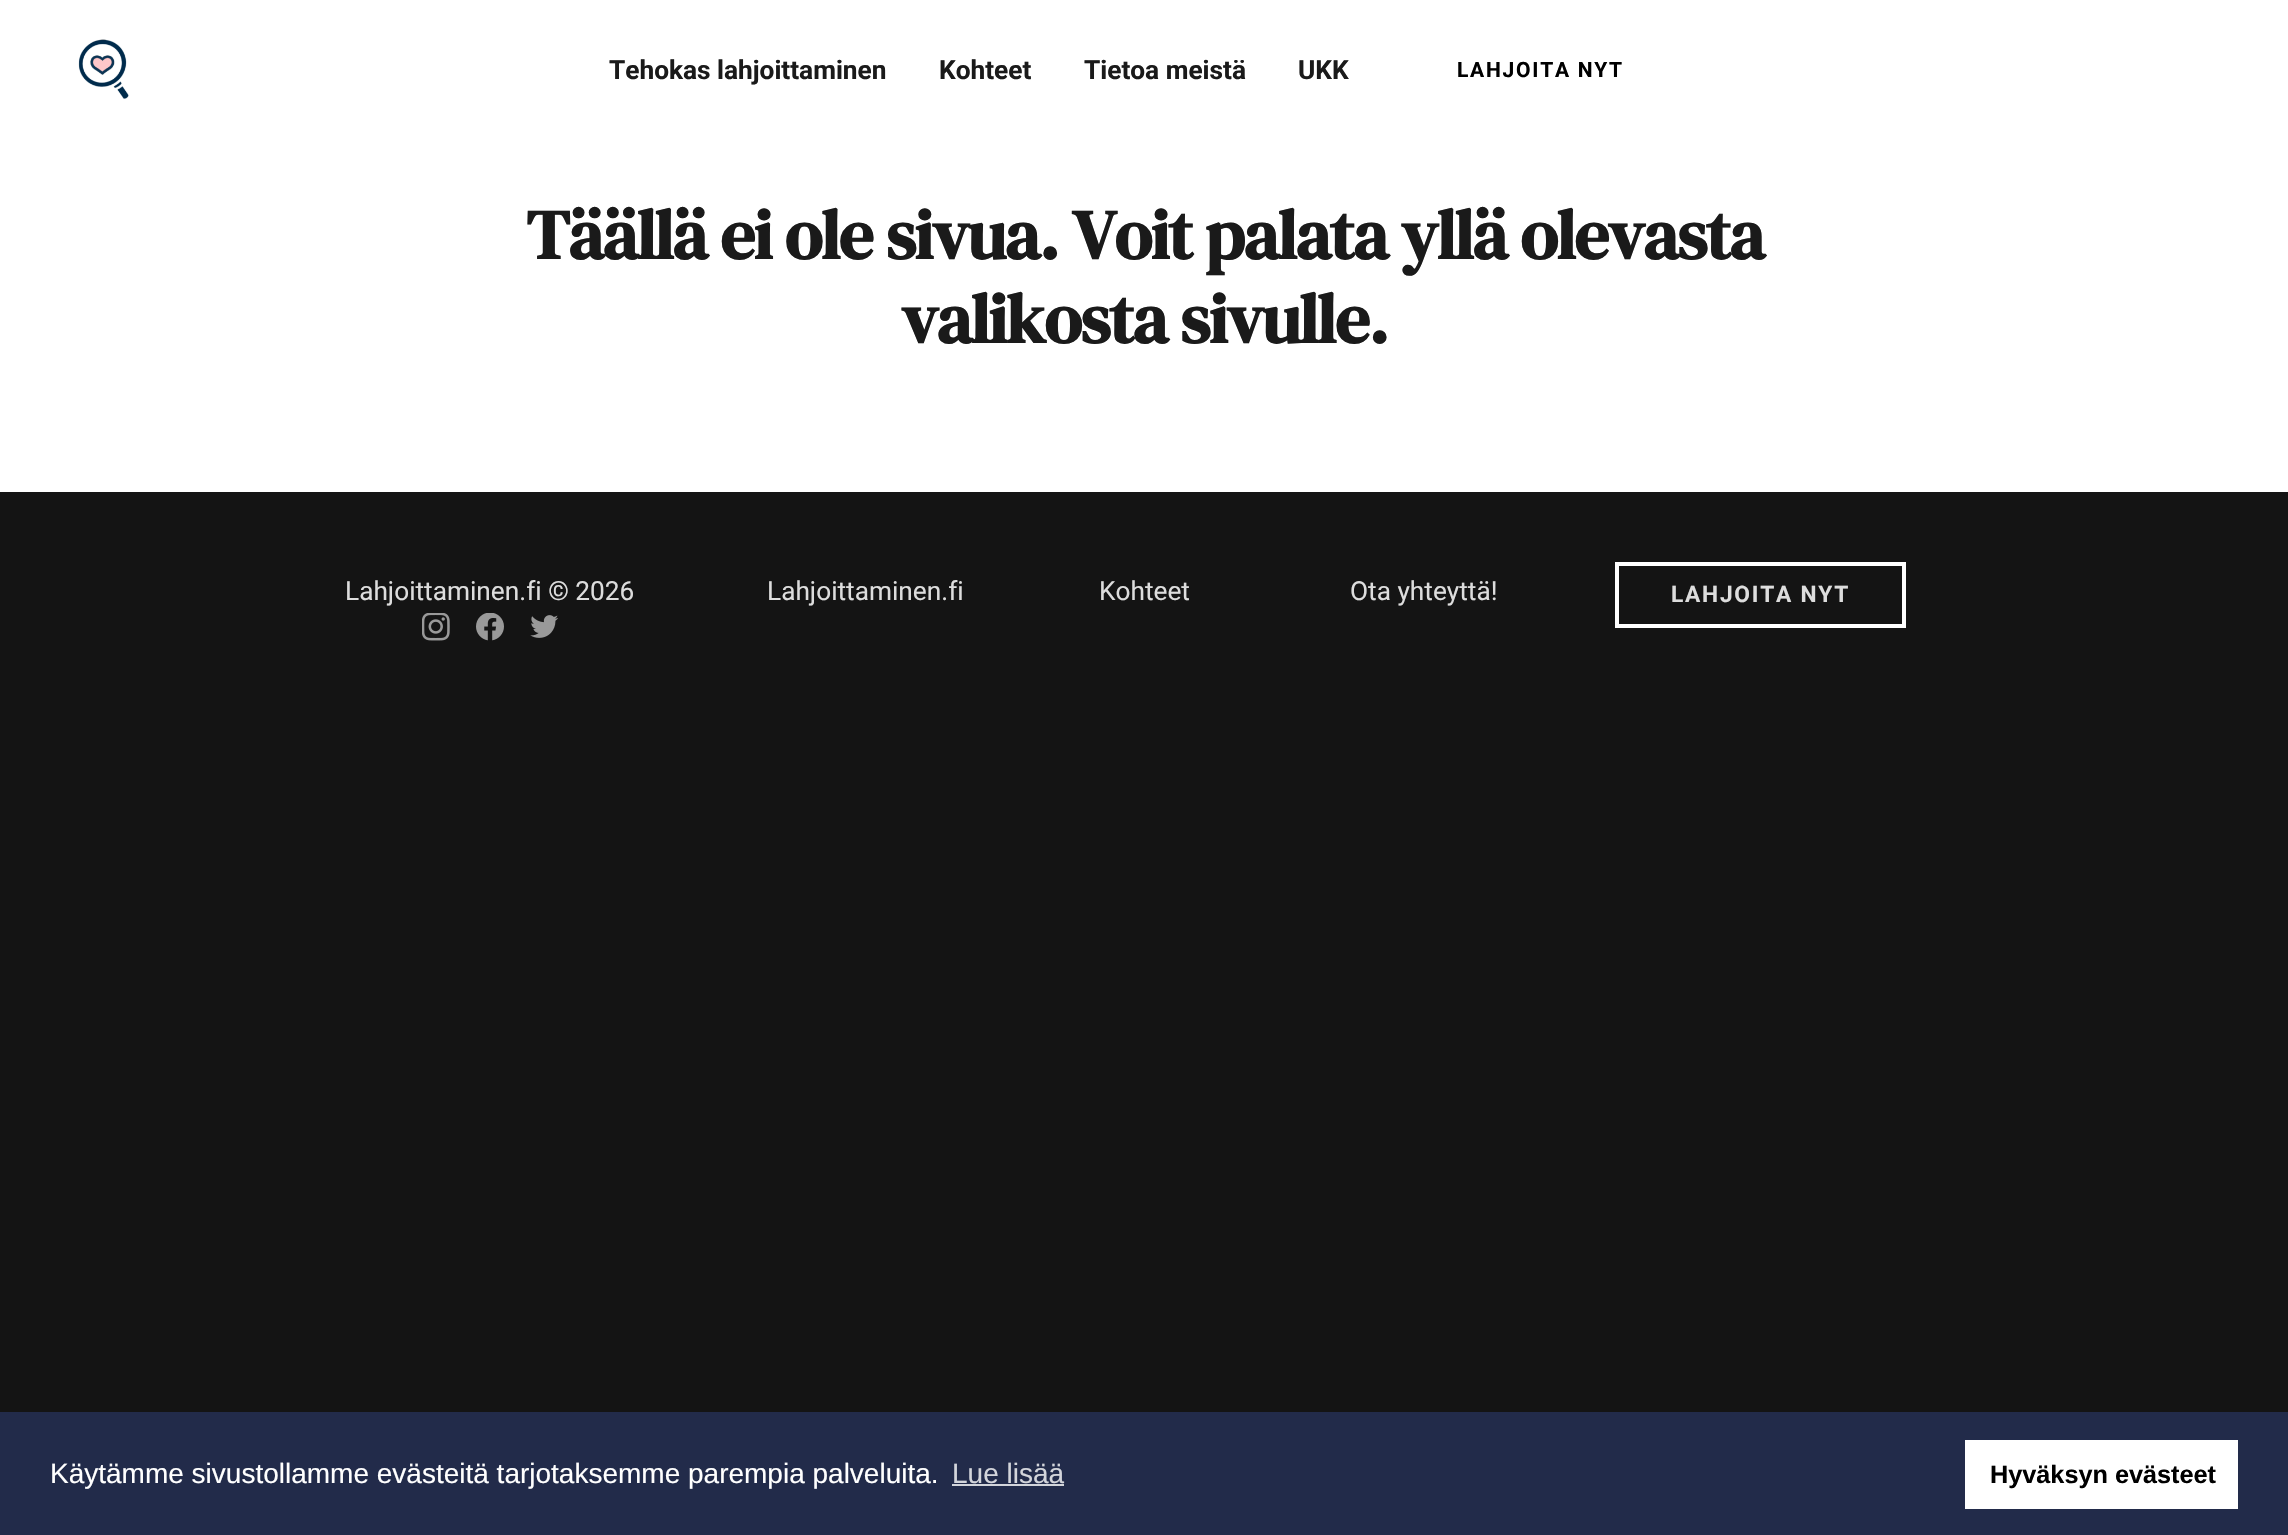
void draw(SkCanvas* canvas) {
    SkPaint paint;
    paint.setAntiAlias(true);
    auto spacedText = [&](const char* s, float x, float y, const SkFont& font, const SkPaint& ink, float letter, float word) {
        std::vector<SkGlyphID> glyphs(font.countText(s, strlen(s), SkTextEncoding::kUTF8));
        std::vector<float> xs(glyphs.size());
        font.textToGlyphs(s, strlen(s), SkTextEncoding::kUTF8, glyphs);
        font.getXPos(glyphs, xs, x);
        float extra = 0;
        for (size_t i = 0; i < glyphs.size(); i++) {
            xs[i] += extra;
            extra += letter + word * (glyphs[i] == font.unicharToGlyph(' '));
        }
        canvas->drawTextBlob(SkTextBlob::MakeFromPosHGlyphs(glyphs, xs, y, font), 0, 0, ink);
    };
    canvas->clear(0xFF141414);
    paint.setColor(0xFFFFFFFF);
    canvas->drawRect(SkRect::MakeXYWH(0, 0, 2288, 492), paint);
    canvas->drawImageRect(SkImages::DeferredFromEncodedData(SkData::MakeFromFileName("img1.png")), SkRect::MakeXYWH(78, 39, 51, 60), SkSamplingOptions());
    SkFont font1(fontMgr->matchFamilyStyle("Roboto", SkFontStyle::Bold()), 26.25f);
    font1.setSubpixel(true);
    paint.setColor(0xFF1A1A1A);
    canvas->drawString("Tehokas lahjoittaminen", 609, 79, font1, paint);
    canvas->drawString("Kohteet", 939, 79, font1, paint);
    canvas->drawString("Tietoa meistä", 1084, 79, font1, paint);
    canvas->drawString("UKK", 1298, 79, font1, paint);
    SkFont font2(fontMgr->matchFamilyStyle("Roboto", SkFontStyle::Bold()), 21);
    font2.setSubpixel(true);
    paint.setColor(0xFF000000);
    spacedText("LAHJOITA NYT", 1457, 77, font2, paint, 1.75f, 0);
    SkFont font3(fontMgr->matchFamilyStyle("DM Serif Text", SkFontStyle::Bold()), 70);
    font3.setSubpixel(true);
    paint.setColor(0xFF1A1A1A);
    spacedText("Täällä ei ole sivua. Voit palata yllä olevasta", 526, 259, font3, paint, -1.75f, 0);
    spacedText("valikosta sivulle.", 901, 343, font3, paint, -1.75f, 0);
    SkFont font4(fontMgr->matchFamilyStyle("Roboto", SkFontStyle::Normal()), 26.25f);
    font4.setSubpixel(true);
    paint.setColor(0xFFDDDDDD);
    canvas->drawString("Lahjoittaminen.fi © 2026", 345, 600, font4, paint);
    canvas->drawImageRect(SkImages::DeferredFromEncodedData(SkData::MakeFromFileName("img2.png")), SkRect::MakeXYWH(422, 613, 28, 28), SkSamplingOptions());
    canvas->drawImageRect(SkImages::DeferredFromEncodedData(SkData::MakeFromFileName("img3.png")), SkRect::MakeXYWH(476, 613, 28, 28), SkSamplingOptions());
    canvas->drawImageRect(SkImages::DeferredFromEncodedData(SkData::MakeFromFileName("img4.png")), SkRect::MakeXYWH(530, 615, 28, 23), SkSamplingOptions());
    canvas->drawString("Lahjoittaminen.fi", 767, 600, font4, paint);
    canvas->drawString("Kohteet", 1099, 600, font4, paint);
    canvas->drawString("Ota yhteyttä!", 1350, 600, font4, paint);
    paint.setStyle(SkPaint::kStroke_Style);
    paint.setStrokeWidth(4);
    paint.setColor(0xFFFFFFFF);
    canvas->drawRect(SkRect::MakeXYWH(1617, 564, 287, 62), paint);
    SkFont font5(fontMgr->matchFamilyStyle("Roboto", SkFontStyle::Bold()), 22.75f);
    font5.setSubpixel(true);
    paint.setStyle(SkPaint::kFill_Style);
    paint.setColor(0xFFDDDDDD);
    spacedText("LAHJOITA NYT", 1671, 602, font5, paint, 1.75f, 0);
    paint.setColor(0xFF222B4A);
    canvas->drawRect(SkRect::MakeXYWH(0, 1412, 2288, 123), paint);
    SkFont font6(fontMgr->matchFamilyStyle("Liberation Sans", SkFontStyle::Normal()), 28);
    font6.setSubpixel(true);
    paint.setColor(0xFFFFFFFF);
    canvas->drawString("Käytämme sivustollamme evästeitä tarjotaksemme parempia palveluita.", 50, 1483, font6, paint);
    paint.setColor(0xFFD3D5DB);
    canvas->drawString("Lue lisää", 952, 1483, font6, paint);
    canvas->drawRect(SkRect::MakeXYWH(952, 1484, 112, 2), paint);
    paint.setColor(0xFFFFFFFF);
    canvas->drawRect(SkRect::MakeXYWH(1965, 1440, 273, 69), paint);
    SkFont font7(fontMgr->matchFamilyStyle("Liberation Sans", SkFontStyle::Bold()), 25.25f);
    font7.setSubpixel(true);
    paint.setColor(0xFF000000);
    canvas->drawString("Hyväksyn evästeet", 1990, 1483, font7, paint);
}
